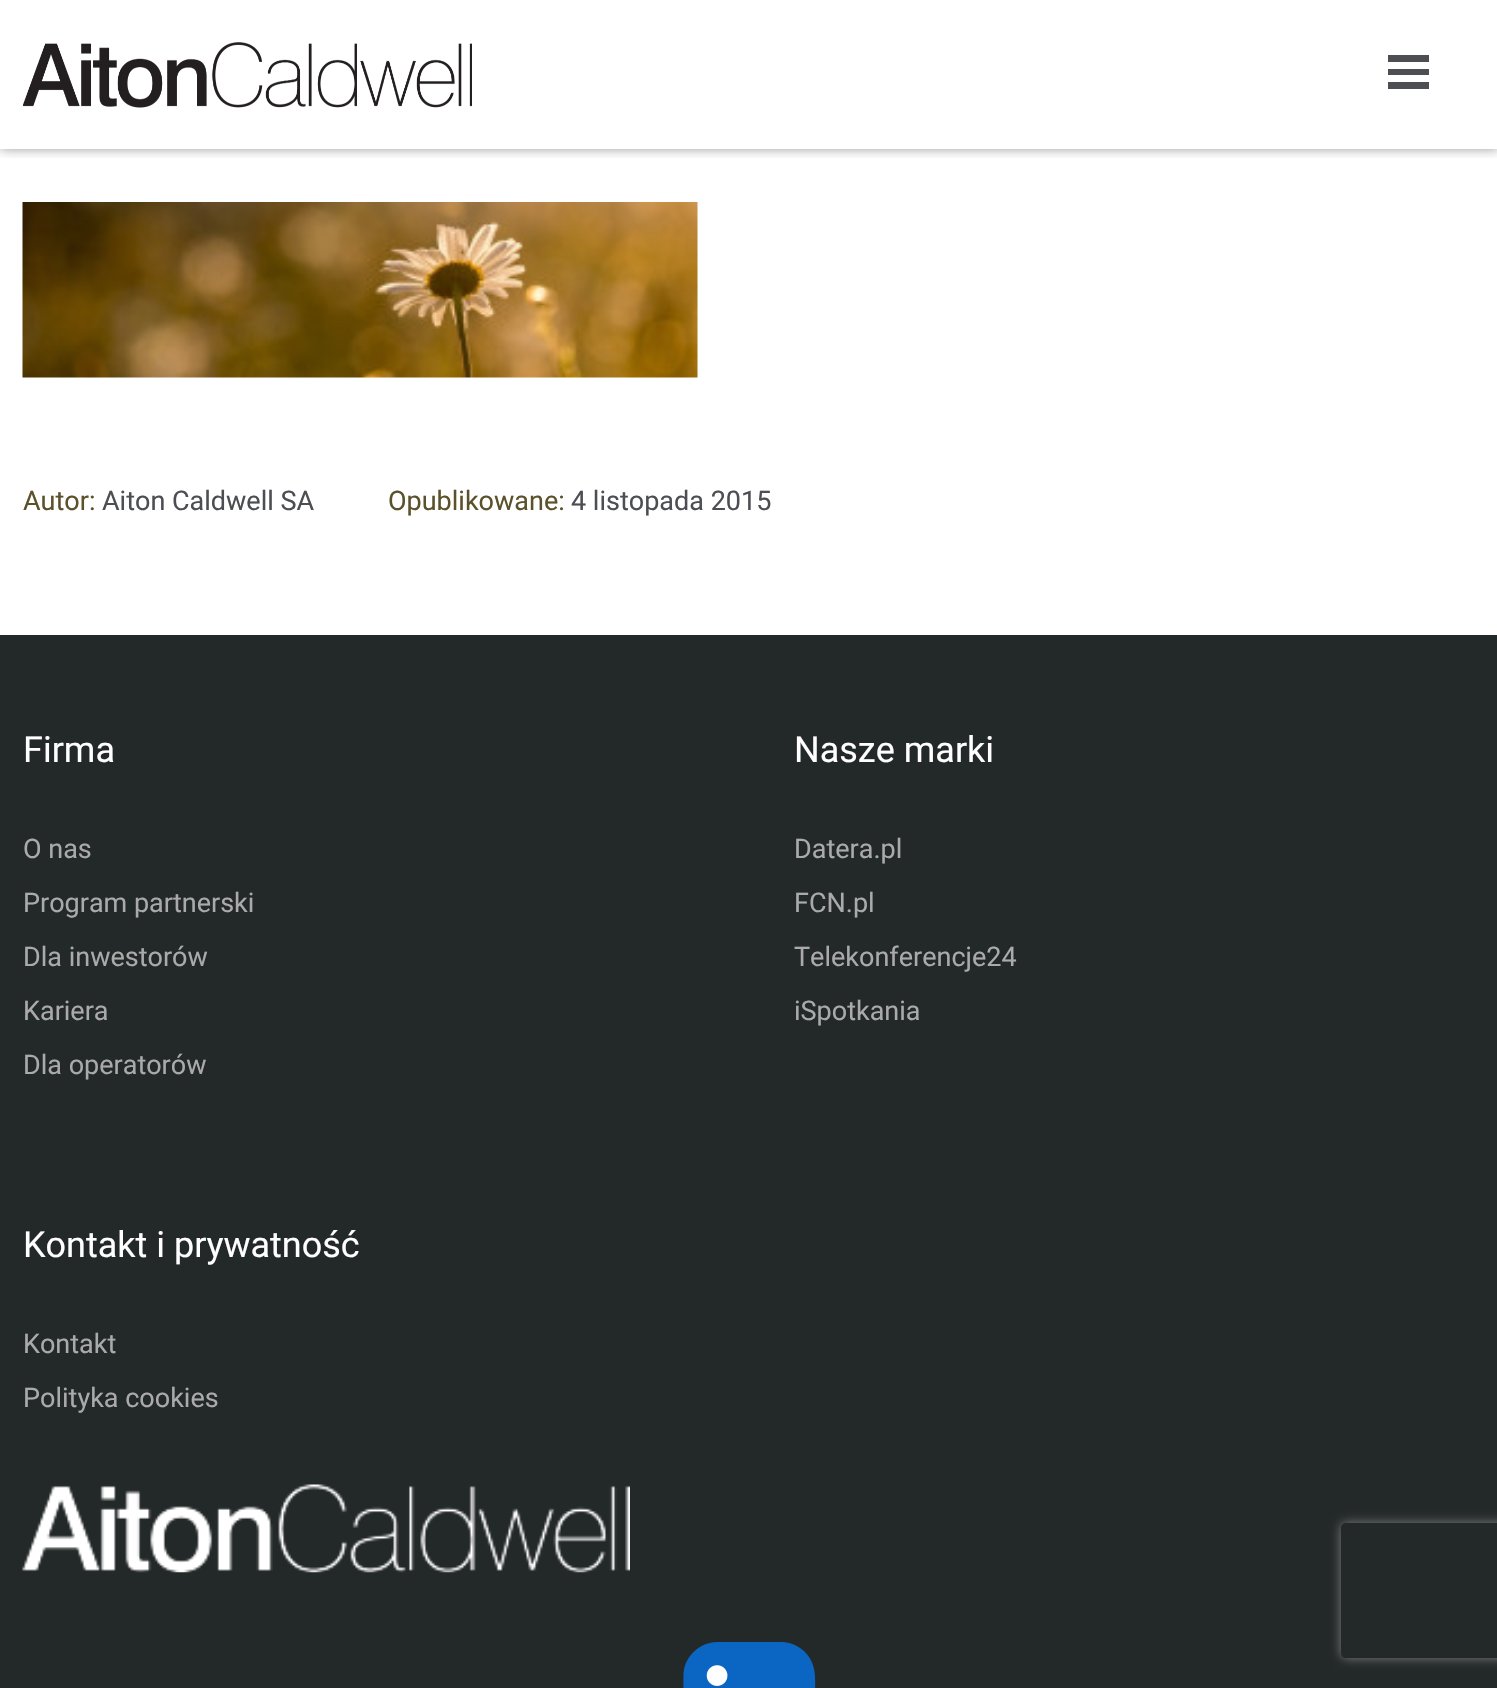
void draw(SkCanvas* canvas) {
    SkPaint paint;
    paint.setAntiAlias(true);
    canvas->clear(0xFFFFFFFF);
    canvas->drawImageRect(SkImages::DeferredFromEncodedData(SkData::MakeFromFileName("img1.png")), SkRect::MakeXYWH(23, 42, 449, 66), SkSamplingOptions());
    paint.setColor(0xFF4D4E53);
    canvas->drawPath(SkPathBuilder().moveTo(1429, 62).lineTo(1388, 62).lineTo(1388, 55).lineTo(1429, 55).close().moveTo(1429, 69).lineTo(1388, 69).lineTo(1388, 75).lineTo(1429, 75).close().moveTo(1429, 82).lineTo(1388, 82).lineTo(1388, 89).lineTo(1429, 89).close().detach(), paint);
    canvas->save();
    canvas->clipRect(SkRect::MakeXYWH(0, 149, 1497, 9));
    paint.setColor(0x63000000);
    paint.setMaskFilter(SkMaskFilter::MakeBlur(kNormal_SkBlurStyle, 5.5f));
    canvas->drawRect(SkRect::MakeXYWH(0, 0, 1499, 149), paint);
    paint.setMaskFilter(nullptr);
    canvas->restore();
    paint.setColor(0xFFFFFFFF);
    canvas->drawRect(SkRect::MakeXYWH(0, 148, 1497, 1), paint);
    canvas->drawImageRect(SkImages::DeferredFromEncodedData(SkData::MakeFromFileName("img2.png")), SkRect::MakeXYWH(22, 202, 676, 176), SkSamplingOptions());
    SkFont font1(fontMgr->matchFamilyStyle("Roboto", SkFontStyle::Normal()), 27);
    font1.setSubpixel(true);
    paint.setColor(0xFF5B512A);
    canvas->drawString("Autor:", 23, 510, font1, paint);
    paint.setColor(0xFF4D4E53);
    canvas->drawString("Aiton Caldwell SA", 102, 510, font1, paint);
    paint.setColor(0xFF5B512A);
    canvas->drawString("Opublikowane:", 388, 510, font1, paint);
    paint.setColor(0xFF4D4E53);
    canvas->drawString("4 listopada 2015", 571, 510, font1, paint);
    paint.setColor(0xFF232828);
    canvas->drawRect(SkRect::MakeXYWH(0, 635, 1497, 1053), paint);
    SkFont font2(fontMgr->matchFamilyStyle("Roboto", SkFontStyle::Normal()), 36);
    font2.setSubpixel(true);
    paint.setColor(0xFFFFFFFF);
    canvas->drawString("Firma", 23, 762, font2, paint);
    paint.setColor(0xFFAAAAAA);
    canvas->drawString("O nas", 23, 858, font1, paint);
    canvas->drawString("Program partnerski", 23, 912, font1, paint);
    canvas->drawString("Dla inwestorów", 23, 966, font1, paint);
    canvas->drawString("Kariera", 23, 1020, font1, paint);
    canvas->drawString("Dla operatorów", 23, 1074, font1, paint);
    paint.setColor(0xFFFFFFFF);
    canvas->drawString("Nasze marki", 794, 762, font2, paint);
    paint.setColor(0xFFAAAAAA);
    canvas->drawString("Datera.pl", 794, 858, font1, paint);
    canvas->drawString("FCN.pl", 794, 912, font1, paint);
    canvas->drawString("Telekonferencje24", 794, 966, font1, paint);
    canvas->drawString("iSpotkania", 794, 1020, font1, paint);
    paint.setColor(0xFFFFFFFF);
    canvas->drawString("Kontakt i prywatność", 23, 1257, font2, paint);
    paint.setColor(0xFFAAAAAA);
    canvas->drawString("Kontakt", 23, 1353, font1, paint);
    canvas->drawString("Polityka cookies", 23, 1407, font1, paint);
    canvas->drawImageRect(SkImages::DeferredFromEncodedData(SkData::MakeFromFileName("img3.png")), SkRect::MakeXYWH(22, 1484, 608, 89), SkSamplingOptions());
    canvas->drawImageRect(SkImages::DeferredFromEncodedData(SkData::MakeFromFileName("img4.png")), SkRect::MakeXYWH(683, 1642, 133, 46), SkSamplingOptions());
    canvas->save();
    canvas->clipPath(SkPathBuilder(SkPathFillType::kEvenOdd).moveTo(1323, 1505).lineTo(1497, 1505).lineTo(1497, 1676).lineTo(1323, 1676).close().moveTo(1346, 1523).lineTo(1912, 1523).cubicTo(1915, 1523, 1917, 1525, 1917, 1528).lineTo(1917, 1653).cubicTo(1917, 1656, 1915, 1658, 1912, 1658).lineTo(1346, 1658).cubicTo(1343, 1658, 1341, 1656, 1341, 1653).lineTo(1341, 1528).cubicTo(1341, 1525, 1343, 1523, 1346, 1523).close().detach(), true);
    paint.setColor(0xFF808080);
    paint.setMaskFilter(SkMaskFilter::MakeBlur(kNormal_SkBlurStyle, 5.5f));
    canvas->drawRoundRect(SkRect::MakeXYWH(1341, 1523, 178, 135), 5, 5, paint);
    paint.setMaskFilter(nullptr);
    canvas->restore();
}
